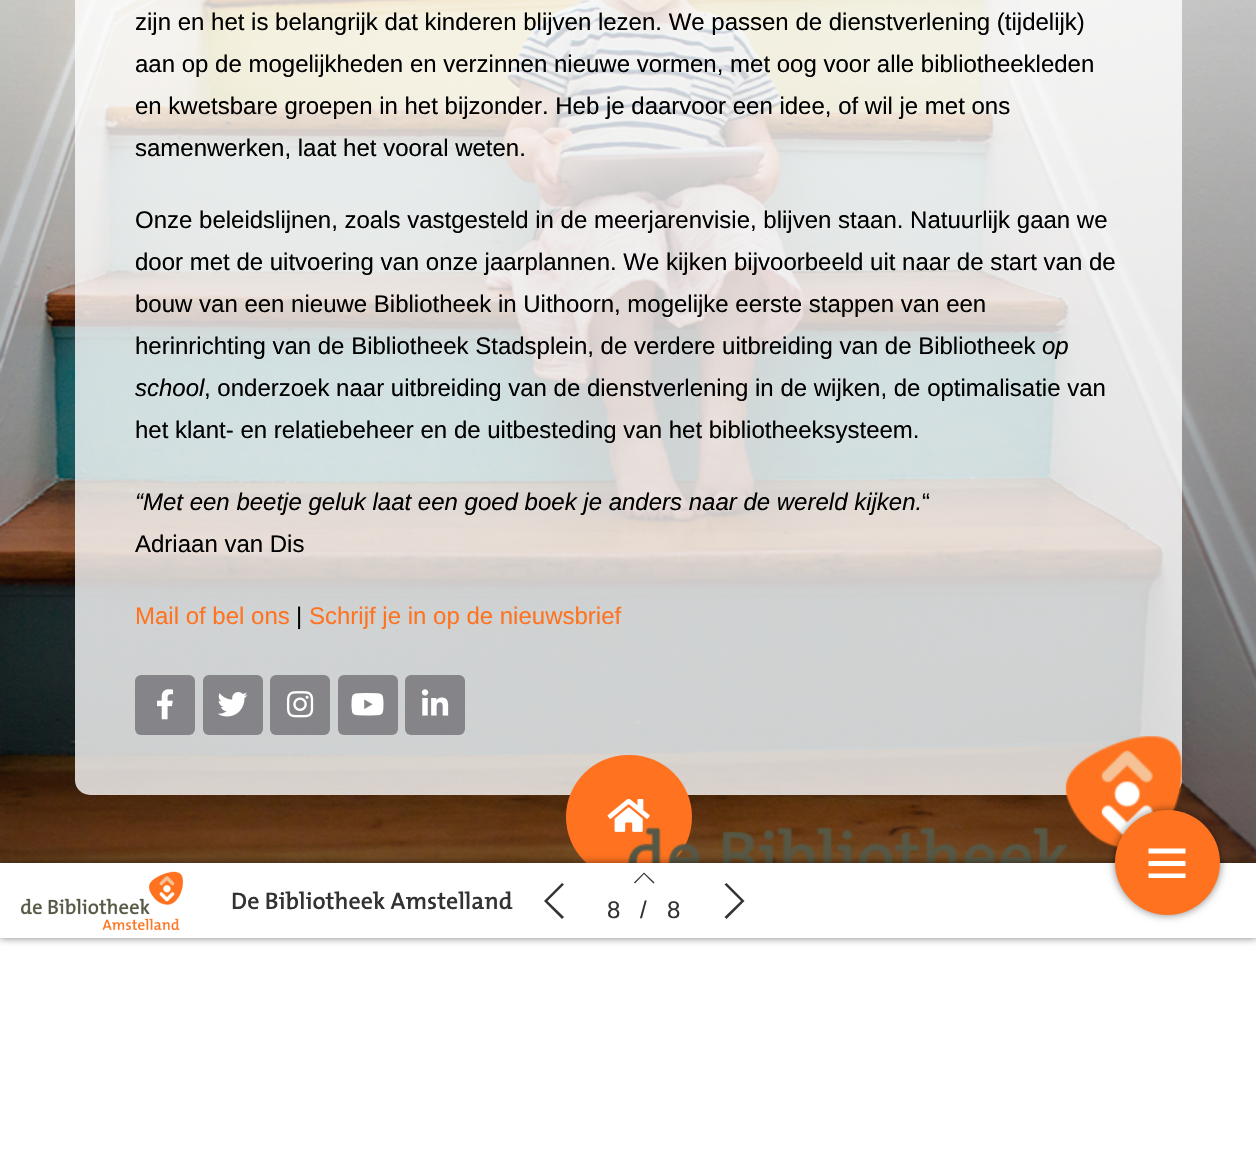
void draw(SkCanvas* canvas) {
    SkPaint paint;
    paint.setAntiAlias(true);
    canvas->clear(0xFFFFFFFF);
    canvas->drawImageRect(SkImages::DeferredFromEncodedData(SkData::MakeFromFileName("img1.png")), SkRect::MakeXYWH(0, 0, 1256, 863), SkSamplingOptions());
    {
        const SkColor colors[] = {0x800C0C0C, 0x000C0C0C};
        const float stops[] = {0, 1};
        const SkPoint ends[] = {{629, 872}, {628, -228}};
        paint.setShader(SkGradientShader::MakeLinear(ends, colors, stops, 2, SkTileMode::kClamp));
        paint.setAlpha(255);
    }
    canvas->drawRect(SkRect::MakeXYWH(0, 0, 1256, 863), paint);
    paint.setShader(nullptr);
    paint.setColor(0xC9FFFFFF);
    canvas->drawRoundRect(SkRect::MakeXYWH(75, -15, 1107, 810), 15, 15, paint);
    SkFont font1(fontMgr->matchFamilyStyle("Liberation Sans", SkFontStyle::Normal()), 24);
    font1.setSubpixel(true);
    paint.setColor(0xFF000000);
    canvas->drawString("zijn en het is belangrijk dat kinderen blijven lezen. We passen de dienstverlening (tijdelijk)", 135, 30, font1, paint);
    canvas->drawString("aan op de mogelijkheden en verzinnen nieuwe vormen, met oog voor alle bibliotheekleden", 135, 72, font1, paint);
    canvas->drawString("en kwetsbare groepen in het bijzonder. Heb je daarvoor een idee, of wil je met ons", 135, 114, font1, paint);
    canvas->drawString("samenwerken, laat het vooral weten.", 135, 156, font1, paint);
    canvas->drawString("Onze beleidslijnen, zoals vastgesteld in de meerjarenvisie, blijven staan. Natuurlijk gaan we", 135, 228, font1, paint);
    canvas->drawString("door met de uitvoering van onze jaarplannen. We kijken bijvoorbeeld uit naar de start van de", 135, 270, font1, paint);
    canvas->drawString("bouw van een nieuwe Bibliotheek in Uithoorn, mogelijke eerste stappen van een", 135, 312, font1, paint);
    canvas->drawString("herinrichting van de Bibliotheek Stadsplein, de verdere uitbreiding van de Bibliotheek", 135, 354, font1, paint);
    SkFont font2(fontMgr->matchFamilyStyle("Liberation Sans", SkFontStyle::Italic()), 24);
    font2.setSubpixel(true);
    canvas->drawString("op", 1042, 354, font2, paint);
    canvas->drawString("school", 135, 396, font2, paint);
    canvas->drawString(", onderzoek naar uitbreiding van de dienstverlening in de wijken, de optimalisatie van", 204, 396, font1, paint);
    canvas->drawString("het klant- en relatiebeheer en de uitbesteding van het bibliotheeksysteem.", 135, 438, font1, paint);
    canvas->drawString("“Met een beetje geluk laat een goed boek je anders naar de wereld kijken.", 135, 510, font2, paint);
    canvas->drawString("“", 922, 510, font1, paint);
    canvas->drawString("Adriaan van Dis", 135, 552, font1, paint);
    paint.setColor(0xFFFF7320);
    canvas->drawString("Mail of bel ons", 135, 624, font1, paint);
    paint.setColor(0xFF000000);
    canvas->drawString("|", 296, 624, font1, paint);
    paint.setColor(0xFFFF7320);
    canvas->drawString("Schrijf je in op de nieuwsbrief", 309, 624, font1, paint);
    paint.setColor(0xFF858589);
    canvas->drawRoundRect(SkRect::MakeXYWH(135, 675, 60, 60), 6, 6, paint);
    canvas->drawImageRect(SkImages::DeferredFromEncodedData(SkData::MakeFromFileName("img2.png")), SkRect::MakeXYWH(157, 689, 16, 31), SkSamplingOptions());
    canvas->drawRoundRect(SkRect::MakeXYWH(203, 675, 60, 60), 6, 6, paint);
    canvas->drawImageRect(SkImages::DeferredFromEncodedData(SkData::MakeFromFileName("img3.png")), SkRect::MakeXYWH(217, 692, 31, 25), SkSamplingOptions());
    canvas->drawRoundRect(SkRect::MakeXYWH(270, 675, 60, 60), 6, 6, paint);
    canvas->drawImageRect(SkImages::DeferredFromEncodedData(SkData::MakeFromFileName("img4.png")), SkRect::MakeXYWH(286, 691, 28, 27), SkSamplingOptions());
    canvas->drawRoundRect(SkRect::MakeXYWH(338, 675, 60, 60), 6, 6, paint);
    canvas->drawImageRect(SkImages::DeferredFromEncodedData(SkData::MakeFromFileName("img5.png")), SkRect::MakeXYWH(351, 693, 33, 23), SkSamplingOptions());
    canvas->drawRoundRect(SkRect::MakeXYWH(405, 675, 60, 60), 6, 6, paint);
    canvas->drawImageRect(SkImages::DeferredFromEncodedData(SkData::MakeFromFileName("img6.png")), SkRect::MakeXYWH(421, 689, 28, 27), SkSamplingOptions());
    paint.setColor(0xFFFF7320);
    canvas->drawRoundRect(SkRect::MakeXYWH(566, 755, 126, 124), 62, 62, paint);
    canvas->drawImageRect(SkImages::DeferredFromEncodedData(SkData::MakeFromFileName("img7.png")), SkRect::MakeXYWH(607, 799, 43, 33), SkSamplingOptions());
    canvas->drawImageRect(SkImages::DeferredFromEncodedData(SkData::MakeFromFileName("img8.png")), SkRect::MakeXYWH(628, 736, 554, 127), SkSamplingOptions());
    paint.setColor(0x80000000);
    paint.setMaskFilter(SkMaskFilter::MakeBlur(kNormal_SkBlurStyle, 4));
    canvas->drawRect(SkRect::MakeXYWH(0, 863, 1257, 75), paint);
    paint.setMaskFilter(nullptr);
    paint.setColor(0xFFFFFFFF);
    canvas->drawRect(SkRect::MakeXYWH(0, 863, 1256, 75), paint);
    canvas->drawImageRect(SkImages::DeferredFromEncodedData(SkData::MakeFromFileName("img9.png")), SkRect::MakeXYWH(21, 871, 162, 59), SkSamplingOptions());
    SkFont font3(fontMgr->matchFamilyStyle("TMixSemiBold", SkFontStyle(600, SkFontStyle::kNormal_Width, SkFontStyle::kUpright_Slant)), 24);
    font3.setSubpixel(true);
    paint.setColor(0xFF333334);
    canvas->drawString("De Bibliotheek Amstelland", 231, 909, font3, paint);
    canvas->drawPath(SkPathBuilder().moveTo(547.5f, 901).lineTo(564, 917).lineTo(562, 919).lineTo(544, 901).lineTo(562, 883).lineTo(564, 884.5f).close().detach(), paint);
    canvas->drawPath(SkPathBuilder().moveTo(654.5f, 882.5f).lineTo(653.5f, 883.5f).lineTo(644, 874).lineTo(635, 883.5f).lineTo(634, 882.5f).lineTo(644, 872.5f).close().detach(), paint);
    canvas->drawString("8", 607, 918, font1, paint);
    canvas->drawString("/", 640, 918, font1, paint);
    canvas->drawString("8", 667, 918, font1, paint);
    canvas->drawPath(SkPathBuilder().moveTo(744.5f, 901).lineTo(726.5f, 919).lineTo(724.5f, 917).lineTo(741, 901).lineTo(724.5f, 884.5f).lineTo(726.5f, 883).close().detach(), paint);
    paint.setColor(0x80000000);
    paint.setMaskFilter(SkMaskFilter::MakeBlur(kNormal_SkBlurStyle, 4));
    canvas->drawRoundRect(SkRect::MakeXYWH(1115, 810, 105, 105), 52.5f, 52.5f, paint);
    paint.setMaskFilter(nullptr);
    paint.setColor(0xFFFF7320);
    canvas->drawCircle(1167.5f, 862.5f, 52.5f, paint);
    paint.setColor(0xFFFFFFFF);
    canvas->drawPath(SkPathBuilder().moveTo(1185.5f, 848.5f).lineTo(1185.5f, 853.5f).lineTo(1148.5f, 853.5f).lineTo(1148.5f, 848.5f).close().moveTo(1148.5f, 866).lineTo(1185.5f, 866).lineTo(1185.5f, 861).lineTo(1148.5f, 861).close().moveTo(1148.5f, 878).lineTo(1185.5f, 878).lineTo(1185.5f, 873.5f).lineTo(1148.5f, 873.5f).close().detach(), paint);
}
